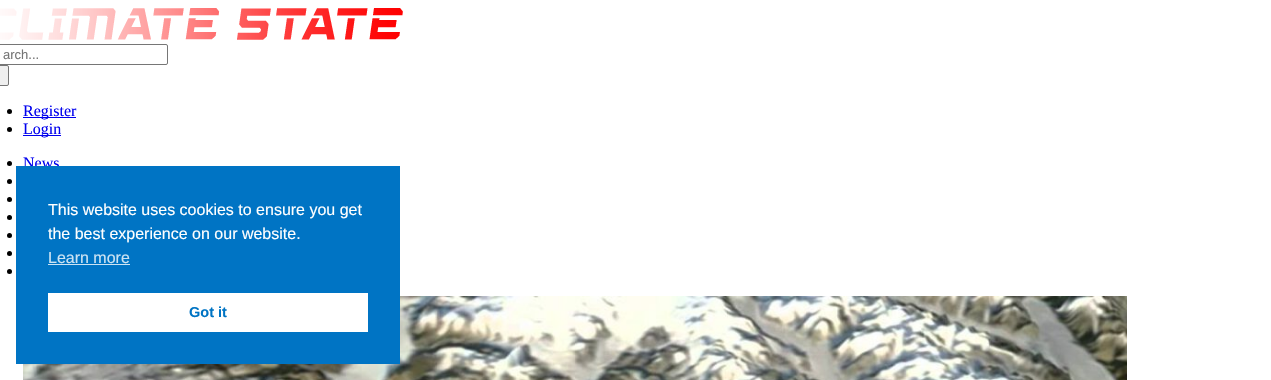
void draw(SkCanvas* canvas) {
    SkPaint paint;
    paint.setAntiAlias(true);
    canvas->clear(0xFFFFFFFF);
    canvas->drawImageRect(SkImages::DeferredFromEncodedData(SkData::MakeFromFileName("img1.png")), SkRect::MakeXYWH(0, 8, 403, 32), SkSamplingOptions());
    paint.setStyle(SkPaint::kStroke_Style);
    paint.setStrokeWidth(1);
    paint.setColor(0xFF767676);
    canvas->drawRoundRect(SkRect::MakeXYWH(-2.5f, 44.5f, 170, 20), 1.5f, 1.5f, paint);
    SkFont font1(fontMgr->matchFamilyStyle("Liberation Sans", SkFontStyle::Normal()), 13);
    font1.setSubpixel(true);
    paint.setStyle(SkPaint::kFill_Style);
    paint.setColor(0xFF757575);
    canvas->drawString("arch...", 3, 59, font1, paint);
    paint.setColor(0xFFEFEFEF);
    canvas->drawRoundRect(SkRect::MakeXYWH(-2.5f, 65.5f, 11, 20), 1.5f, 1.5f, paint);
    paint.setStyle(SkPaint::kStroke_Style);
    paint.setColor(0xFF767676);
    canvas->drawRoundRect(SkRect::MakeXYWH(-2.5f, 65.5f, 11, 20), 1.5f, 1.5f, paint);
    paint.setStyle(SkPaint::kFill_Style);
    paint.setColor(0xFF000000);
    canvas->drawCircle(9.5f, 111.5f, 2.5f, paint);
    paint.setColor(0xFF0000EE);
    canvas->drawRect(SkRect::MakeXYWH(23, 117, 53, 1), paint);
    SkFont font2(fontMgr->matchFamilyStyle("Liberation Serif", SkFontStyle::Normal()), 16);
    font2.setSubpixel(true);
    canvas->drawString("Register", 23, 116, font2, paint);
    paint.setColor(0xFF000000);
    canvas->drawCircle(9.5f, 129.5f, 2.5f, paint);
    paint.setColor(0xFF0000EE);
    canvas->drawRect(SkRect::MakeXYWH(23, 135, 38, 1), paint);
    canvas->drawString("Login", 23, 134, font2, paint);
    paint.setColor(0xFF000000);
    canvas->drawCircle(9.5f, 163.5f, 2.5f, paint);
    paint.setColor(0xFF0000EE);
    canvas->drawString("News", 23, 168, font2, paint);
    paint.setColor(0xFF000000);
    canvas->drawCircle(9.5f, 181.5f, 2.5f, paint);
    canvas->drawCircle(9.5f, 199.5f, 2.5f, paint);
    canvas->drawCircle(9.5f, 217.5f, 2.5f, paint);
    canvas->drawCircle(9.5f, 235.5f, 2.5f, paint);
    canvas->drawCircle(9.5f, 253.5f, 2.5f, paint);
    canvas->drawCircle(9.5f, 271.5f, 2.5f, paint);
    canvas->drawImageRect(SkImages::DeferredFromEncodedData(SkData::MakeFromFileName("img2.png")), SkRect::MakeXYWH(23, 296, 1104, 84), SkSamplingOptions());
    paint.setColor(0xFF0074C4);
    canvas->drawRect(SkRect::MakeXYWH(16, 166, 384, 198), paint);
    SkFont font3(fontMgr->matchFamilyStyle("Liberation Sans", SkFontStyle::Normal()), 16);
    font3.setSubpixel(true);
    paint.setColor(0xFFFFFFFF);
    canvas->drawString("This website uses cookies to ensure you get", 48, 215, font3, paint);
    canvas->drawString("the best experience on our website.", 48, 239, font3, paint);
    paint.setColor(0xFFCCE3F3);
    canvas->drawString("Learn more", 48, 263, font3, paint);
    canvas->drawRect(SkRect::MakeXYWH(48, 264, 82, 1), paint);
    paint.setColor(0xFFFFFFFF);
    canvas->drawRect(SkRect::MakeXYWH(48, 293, 320, 39), paint);
    SkFont font4(fontMgr->matchFamilyStyle("Liberation Sans", SkFontStyle::Bold()), 14.5f);
    font4.setSubpixel(true);
    paint.setColor(0xFF0074C4);
    canvas->drawString("Got it", 189, 317, font4, paint);
}
